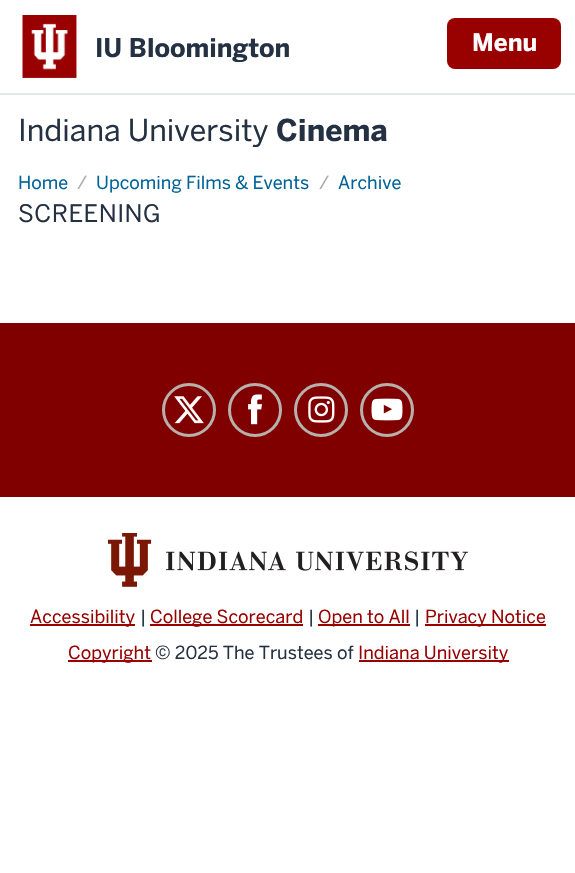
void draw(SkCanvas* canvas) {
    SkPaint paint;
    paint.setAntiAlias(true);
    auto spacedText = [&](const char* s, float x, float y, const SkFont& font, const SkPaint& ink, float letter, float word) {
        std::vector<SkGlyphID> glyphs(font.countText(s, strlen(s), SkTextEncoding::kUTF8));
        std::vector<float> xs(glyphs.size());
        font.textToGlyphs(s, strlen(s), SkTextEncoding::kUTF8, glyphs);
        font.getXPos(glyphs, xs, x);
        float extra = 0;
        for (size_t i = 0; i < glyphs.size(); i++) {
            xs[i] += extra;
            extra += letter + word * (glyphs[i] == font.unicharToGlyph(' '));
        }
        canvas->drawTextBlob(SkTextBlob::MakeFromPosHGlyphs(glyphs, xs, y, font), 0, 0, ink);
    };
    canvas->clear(0xFFFFFFFF);
    paint.setColor(0xFFE2E7E9);
    canvas->drawRect(SkRect::MakeXYWH(0, 93, 575, 2), paint);
    canvas->drawImageRect(SkImages::DeferredFromEncodedData(SkData::MakeFromFileName("img1.png")), SkRect::MakeXYWH(22, 15, 55, 63), SkSamplingOptions());
    SkFont font1(fontMgr->matchFamilyStyle("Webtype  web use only", SkFontStyle::Bold()), 25.5f);
    font1.setSubpixel(true);
    paint.setColor(0xFF243142);
    canvas->drawString("IU Bloomington", 95, 57, font1, paint);
    paint.setColor(0xFF990000);
    canvas->drawRoundRect(SkRect::MakeXYWH(447, 18, 114, 51), 8, 8, paint);
    SkFont font2(fontMgr->matchFamilyStyle("Webtype  web use only", SkFontStyle::Bold()), 24);
    font2.setSubpixel(true);
    paint.setColor(0xFFFFFFFF);
    canvas->drawString("Menu", 472, 51, font2, paint);
    SkFont font3(fontMgr->matchFamilyStyle("Webtype  web use only", SkFontStyle::Normal()), 30);
    font3.setSubpixel(true);
    paint.setColor(0xFF243142);
    canvas->drawString("Indiana University", 18, 141, font3, paint);
    SkFont font4(fontMgr->matchFamilyStyle("Webtype  web use only", SkFontStyle::Bold()), 30);
    font4.setSubpixel(true);
    canvas->drawString("Cinema", 276, 141, font4, paint);
    SkFont font5(fontMgr->matchFamilyStyle("Webtype  web use only", SkFontStyle::Normal()), 18);
    font5.setSubpixel(true);
    paint.setColor(0xFF006298);
    canvas->drawString("Home", 18, 189, font5, paint);
    paint.setColor(0xFFAAAAAA);
    canvas->drawString("/", 77, 189, font5, paint);
    paint.setColor(0xFF006298);
    canvas->drawString("Upcoming Films & Events", 96, 189, font5, paint);
    paint.setColor(0xFFAAAAAA);
    canvas->drawString("/", 319, 189, font5, paint);
    paint.setColor(0xFF006298);
    canvas->drawString("Archive", 338, 189, font5, paint);
    SkFont font6(fontMgr->matchFamilyStyle("Webtype  web use only", SkFontStyle::Normal()), 24);
    font6.setSubpixel(true);
    paint.setColor(0xFF243142);
    spacedText("SCREENING", 18, 222, font6, paint, 0.5f, 0);
    paint.setColor(0xFF800000);
    canvas->drawRect(SkRect::MakeXYWH(0, 323, 575, 174), paint);
    paint.setStyle(SkPaint::kStroke_Style);
    paint.setStrokeWidth(3);
    paint.setColor(0xFFB8B0AB);
    canvas->drawCircle(189, 410, 25.5f, paint);
    canvas->drawImageRect(SkImages::DeferredFromEncodedData(SkData::MakeFromFileName("img2.png")), SkRect::MakeXYWH(174, 396, 30, 28), SkSamplingOptions());
    canvas->drawCircle(255, 410, 25.5f, paint);
    canvas->drawImageRect(SkImages::DeferredFromEncodedData(SkData::MakeFromFileName("img3.png")), SkRect::MakeXYWH(248, 394, 14, 31), SkSamplingOptions());
    canvas->drawCircle(321, 410, 25.5f, paint);
    canvas->drawImageRect(SkImages::DeferredFromEncodedData(SkData::MakeFromFileName("img4.png")), SkRect::MakeXYWH(308, 396, 27, 27), SkSamplingOptions());
    canvas->drawCircle(387, 410, 25.5f, paint);
    canvas->drawImageRect(SkImages::DeferredFromEncodedData(SkData::MakeFromFileName("img5.png")), SkRect::MakeXYWH(371, 398, 32, 23), SkSamplingOptions());
    canvas->drawImageRect(SkImages::DeferredFromEncodedData(SkData::MakeFromFileName("img6.png")), SkRect::MakeXYWH(108, 533, 360, 54), SkSamplingOptions());
    paint.setStyle(SkPaint::kFill_Style);
    paint.setColor(0xFF990000);
    canvas->drawRect(SkRect::MakeXYWH(30, 624, 105, 2), paint);
    canvas->drawString("Accessibility", 30, 623, font5, paint);
    paint.setColor(0xFF243142);
    canvas->drawString("|", 140, 623, font5, paint);
    paint.setColor(0xFF990000);
    canvas->drawRect(SkRect::MakeXYWH(150, 624, 153, 2), paint);
    canvas->drawString("College Scorecard", 150, 623, font5, paint);
    paint.setColor(0xFF243142);
    canvas->drawString("|", 308, 623, font5, paint);
    paint.setColor(0xFF990000);
    canvas->drawRect(SkRect::MakeXYWH(318, 624, 92, 2), paint);
    canvas->drawString("Open to All", 318, 623, font5, paint);
    paint.setColor(0xFF243142);
    canvas->drawString("|", 414, 623, font5, paint);
    paint.setColor(0xFF990000);
    canvas->drawRect(SkRect::MakeXYWH(425, 624, 121, 2), paint);
    canvas->drawString("Privacy Notice", 425, 623, font5, paint);
    canvas->drawRect(SkRect::MakeXYWH(68, 660, 84, 2), paint);
    canvas->drawString("Copyright", 68, 659, font5, paint);
    paint.setColor(0xFF243142);
    canvas->drawString("© 2025 The Trustees of", 155, 659, font5, paint);
    paint.setColor(0xFF990000);
    canvas->drawRect(SkRect::MakeXYWH(359, 660, 150, 2), paint);
    canvas->drawString("Indiana University", 358, 659, font5, paint);
}
